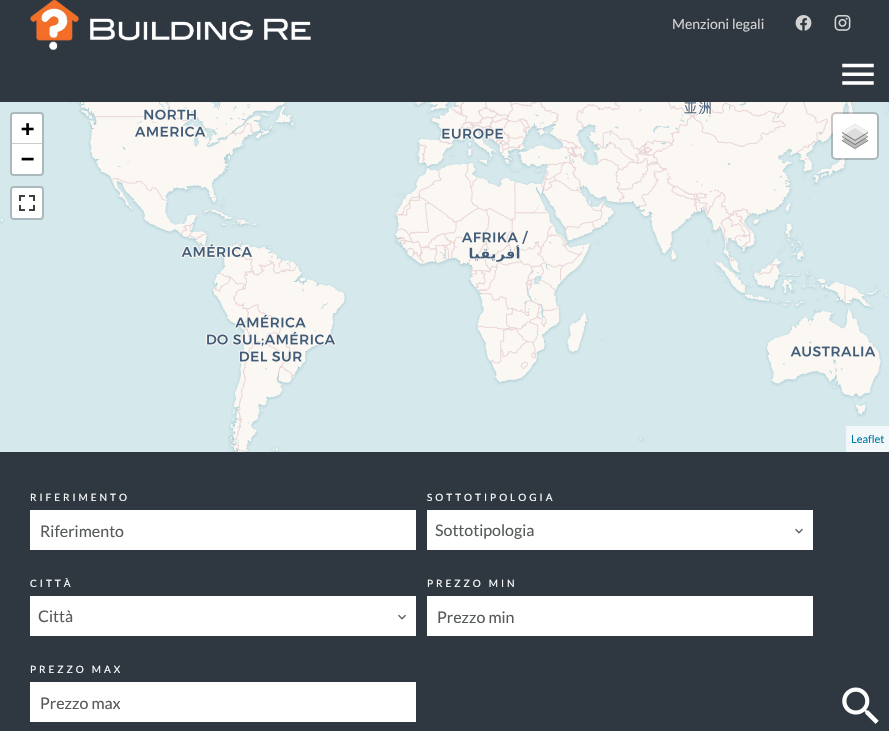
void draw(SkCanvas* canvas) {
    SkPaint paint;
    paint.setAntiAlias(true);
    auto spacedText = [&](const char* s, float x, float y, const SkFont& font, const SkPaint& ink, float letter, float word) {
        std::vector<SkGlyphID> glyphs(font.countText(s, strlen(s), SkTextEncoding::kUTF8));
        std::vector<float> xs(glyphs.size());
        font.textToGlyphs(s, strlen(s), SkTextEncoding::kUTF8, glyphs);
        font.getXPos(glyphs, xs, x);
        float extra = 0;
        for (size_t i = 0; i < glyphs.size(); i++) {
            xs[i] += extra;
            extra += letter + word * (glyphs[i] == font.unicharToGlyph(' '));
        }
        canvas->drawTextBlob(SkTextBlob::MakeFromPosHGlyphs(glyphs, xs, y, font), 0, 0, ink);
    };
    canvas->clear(0xFF2F3841);
    canvas->drawImageRect(SkImages::DeferredFromEncodedData(SkData::MakeFromFileName("img1.png")), SkRect::MakeXYWH(30, 0, 281, 50), SkSamplingOptions());
    SkFont font1(fontMgr->matchFamilyStyle("Lato", SkFontStyle::Normal()), 14);
    font1.setSubpixel(true);
    paint.setColor(0xFFD2D2D2);
    canvas->drawString("Menzioni legali", 672, 29, font1, paint);
    canvas->drawImageRect(SkImages::DeferredFromEncodedData(SkData::MakeFromFileName("img2.png")), SkRect::MakeXYWH(795, 15, 17, 16), SkSamplingOptions());
    canvas->drawImageRect(SkImages::DeferredFromEncodedData(SkData::MakeFromFileName("img3.png")), SkRect::MakeXYWH(834, 15, 17, 16), SkSamplingOptions());
    canvas->drawImageRect(SkImages::DeferredFromEncodedData(SkData::MakeFromFileName("img4.png")), SkRect::MakeXYWH(842, 63, 32, 22), SkSamplingOptions());
    canvas->drawImageRect(SkImages::DeferredFromEncodedData(SkData::MakeFromFileName("img5.png")), SkRect::MakeXYWH(0, 102, 188, 175), SkSamplingOptions());
    canvas->drawImageRect(SkImages::DeferredFromEncodedData(SkData::MakeFromFileName("img6.png")), SkRect::MakeXYWH(188, 102, 256, 175), SkSamplingOptions());
    canvas->drawImageRect(SkImages::DeferredFromEncodedData(SkData::MakeFromFileName("img7.png")), SkRect::MakeXYWH(444, 102, 256, 175), SkSamplingOptions());
    canvas->drawImageRect(SkImages::DeferredFromEncodedData(SkData::MakeFromFileName("img8.png")), SkRect::MakeXYWH(700, 102, 189, 175), SkSamplingOptions());
    paint.setColor(0xFFD5E8EB);
    canvas->drawRect(SkRect::MakeXYWH(0, 277, 188, 175), paint);
    canvas->drawImageRect(SkImages::DeferredFromEncodedData(SkData::MakeFromFileName("img9.png")), SkRect::MakeXYWH(188, 277, 256, 175), SkSamplingOptions());
    canvas->drawImageRect(SkImages::DeferredFromEncodedData(SkData::MakeFromFileName("img10.png")), SkRect::MakeXYWH(444, 277, 256, 175), SkSamplingOptions());
    canvas->drawImageRect(SkImages::DeferredFromEncodedData(SkData::MakeFromFileName("img11.png")), SkRect::MakeXYWH(700, 277, 189, 175), SkSamplingOptions());
    paint.setStyle(SkPaint::kStroke_Style);
    paint.setStrokeWidth(2);
    paint.setColor(0xFFAABABC);
    canvas->drawRoundRect(SkRect::MakeXYWH(11, 113, 32, 62), 3, 3, paint);
    paint.setStyle(SkPaint::kFill_Style);
    paint.setColor(0xFFFFFFFF);
    canvas->drawPath(SkPathBuilder().moveTo(14, 114).lineTo(40, 114).cubicTo(41, 114, 42, 115, 42, 116).lineTo(42, 144).lineTo(12, 144).lineTo(12, 116).cubicTo(12, 115, 13, 114, 14, 114).close().detach(), paint);
    paint.setColor(0xFFCCCCCC);
    canvas->drawRect(SkRect::MakeXYWH(12, 143, 30, 1), paint);
    SkFont font2(fontMgr->matchFamilyStyle("DejaVu Sans Mono", SkFontStyle::Bold()), 22);
    font2.setSubpixel(true);
    paint.setColor(0xFF000000);
    canvas->drawString("+", 21, 136, font2, paint);
    paint.setColor(0xFFFFFFFF);
    canvas->drawPath(SkPathBuilder().moveTo(12, 144).lineTo(42, 144).lineTo(42, 172).cubicTo(42, 173, 41, 174, 40, 174).lineTo(14, 174).cubicTo(13, 174, 12, 173, 12, 172).close().detach(), paint);
    paint.setColor(0xFF000000);
    canvas->drawString("−", 21, 166, font2, paint);
    paint.setStyle(SkPaint::kStroke_Style);
    paint.setColor(0xFFAABABC);
    canvas->drawRoundRect(SkRect::MakeXYWH(11, 187, 32, 32), 3, 3, paint);
    paint.setStyle(SkPaint::kFill_Style);
    paint.setColor(0xFFFFFFFF);
    canvas->drawRoundRect(SkRect::MakeXYWH(12, 188, 30, 30), 2, 2, paint);
    canvas->drawImageRect(SkImages::DeferredFromEncodedData(SkData::MakeFromFileName("img12.png")), SkRect::MakeXYWH(19, 195, 16, 16), SkSamplingOptions());
    canvas->drawRoundRect(SkRect::MakeXYWH(833, 114, 44, 44), 3, 3, paint);
    paint.setStyle(SkPaint::kStroke_Style);
    paint.setColor(0x33000000);
    canvas->drawRoundRect(SkRect::MakeXYWH(832, 113, 46, 46), 4, 4, paint);
    canvas->drawImageRect(SkImages::DeferredFromEncodedData(SkData::MakeFromFileName("img13.png")), SkRect::MakeXYWH(842, 124, 26, 25), SkSamplingOptions());
    paint.setStyle(SkPaint::kFill_Style);
    paint.setColor(0xFFF2F8F9);
    canvas->drawRect(SkRect::MakeXYWH(846, 426, 43, 26), paint);
    SkFont font3(fontMgr->matchFamilyStyle("Lato", SkFontStyle::Normal()), 11);
    font3.setSubpixel(true);
    paint.setColor(0xFF0078A8);
    canvas->drawString("Leaflet", 851, 443, font3, paint);
    SkFont font4(fontMgr->matchFamilyStyle("Lato", SkFontStyle::Normal()), 10);
    font4.setSubpixel(true);
    paint.setColor(0xFFFFFFFF);
    spacedText("RIFERIMENTO", 30, 501, font4, paint, 3, 0);
    canvas->drawRect(SkRect::MakeXYWH(30, 510, 386, 40), paint);
    SkFont font5(fontMgr->matchFamilyStyle("Lato", SkFontStyle::Normal()), 16);
    font5.setSubpixel(true);
    paint.setColor(0xFF565A59);
    canvas->drawString("Riferimento", 40, 537, font5, paint);
    paint.setColor(0xFFFFFFFF);
    spacedText("SOTTOTIPOLOGIA", 427, 501, font4, paint, 3, 0);
    canvas->drawRect(SkRect::MakeXYWH(427, 510, 386, 40), paint);
    paint.setColor(0xFF565A59);
    canvas->drawString("Sottotipologia", 435, 536, font5, paint);
    canvas->drawImageRect(SkImages::DeferredFromEncodedData(SkData::MakeFromFileName("img14.png")), SkRect::MakeXYWH(795, 528, 8, 6), SkSamplingOptions());
    paint.setColor(0xFFFFFFFF);
    spacedText("CITTÀ", 30, 587, font4, paint, 3, 0);
    canvas->drawRect(SkRect::MakeXYWH(30, 596, 386, 40), paint);
    paint.setColor(0xFF565A59);
    canvas->drawString("Città", 38, 622, font5, paint);
    canvas->drawImageRect(SkImages::DeferredFromEncodedData(SkData::MakeFromFileName("img14.png")), SkRect::MakeXYWH(398, 614, 8, 6), SkSamplingOptions());
    paint.setColor(0xFFFFFFFF);
    spacedText("PREZZO MIN", 427, 587, font4, paint, 3, 0);
    canvas->drawRect(SkRect::MakeXYWH(427, 596, 386, 40), paint);
    paint.setColor(0xFF565A59);
    canvas->drawString("Prezzo min", 437, 623, font5, paint);
    paint.setColor(0xFFFFFFFF);
    spacedText("PREZZO MAX", 30, 673, font4, paint, 3, 0);
    canvas->drawRect(SkRect::MakeXYWH(30, 682, 386, 40), paint);
    paint.setColor(0xFF565A59);
    canvas->drawString("Prezzo max", 40, 709, font5, paint);
    canvas->drawImageRect(SkImages::DeferredFromEncodedData(SkData::MakeFromFileName("img15.png")), SkRect::MakeXYWH(842, 687, 37, 37), SkSamplingOptions());
}
